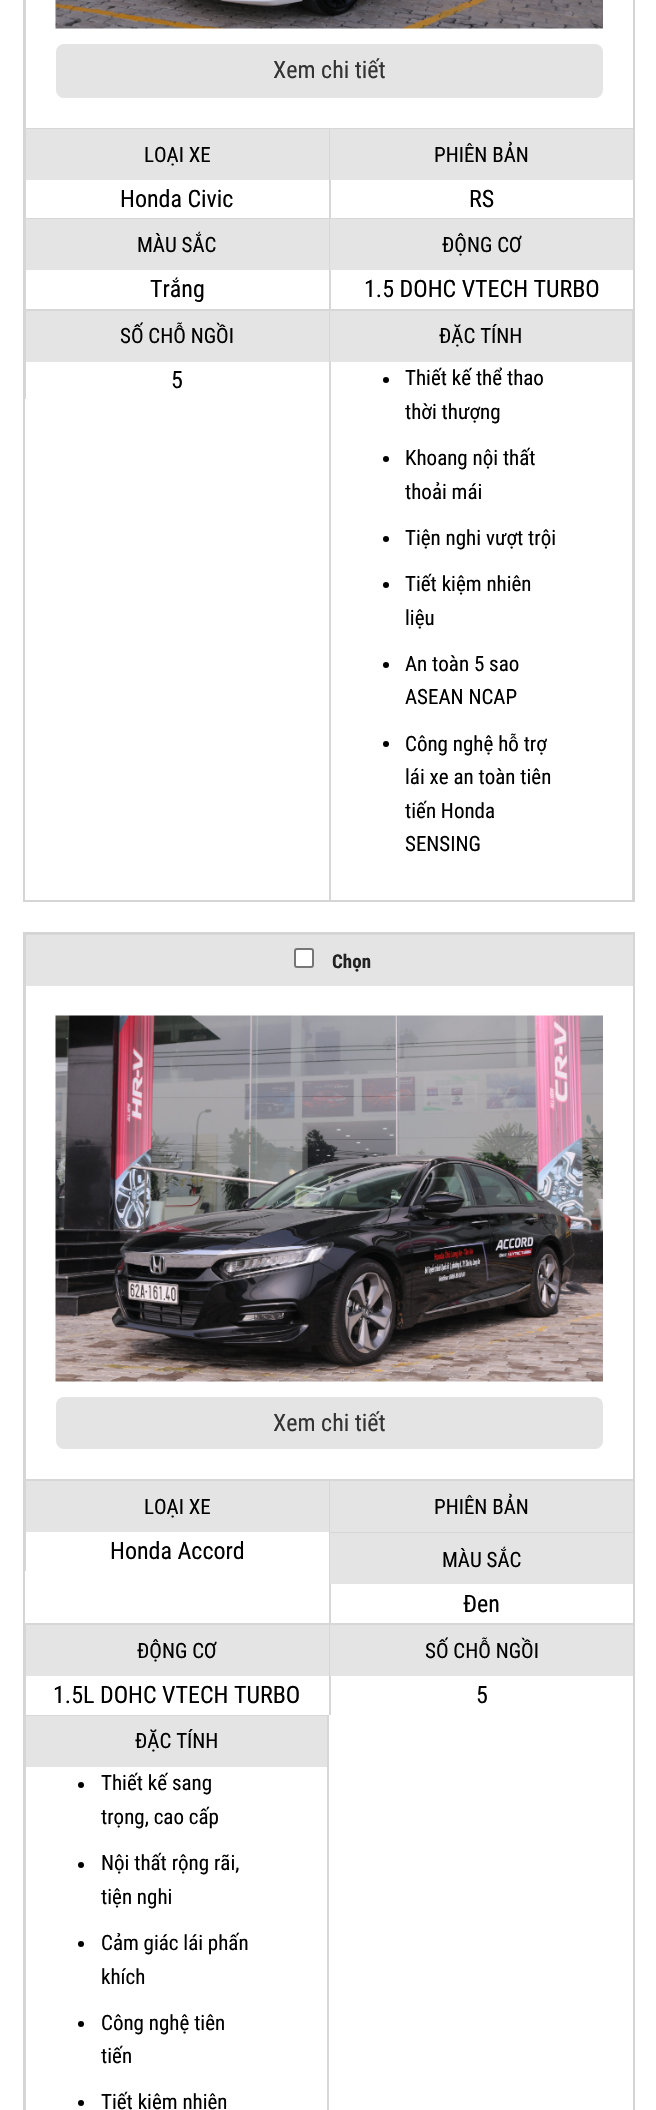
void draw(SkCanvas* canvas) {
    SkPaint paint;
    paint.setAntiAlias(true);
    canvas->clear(0xFFFFFFFF);
    paint.setStyle(SkPaint::kStroke_Style);
    paint.setStrokeWidth(2);
    paint.setColor(0xFFD5D5D5);
    canvas->drawRect(SkRect::MakeXYWH(24, -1, 610, 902), paint);
    paint.setStyle(SkPaint::kFill_Style);
    paint.setColor(0xFFD7D7D7);
    canvas->drawRect(SkRect::MakeXYWH(25, 0, 1, 128), paint);
    canvas->drawImageRect(SkImages::DeferredFromEncodedData(SkData::MakeFromFileName("img1.png")), SkRect::MakeXYWH(55, 0, 548, 29), SkSamplingOptions());
    paint.setColor(0xFFE4E4E4);
    canvas->drawRoundRect(SkRect::MakeXYWH(56, 44, 547, 54), 8, 8, paint);
    SkFont font1(fontMgr->matchFamilyStyle("Roboto Condensed", SkFontStyle::Normal()), 24);
    font1.setSubpixel(true);
    paint.setColor(0xFF333333);
    canvas->drawString("Xem chi tiết", 273, 78, font1, paint);
    paint.setColor(0xFFD7D7D7);
    canvas->drawRect(SkRect::MakeXYWH(24, 128, 609, 1), paint);
    canvas->drawRect(SkRect::MakeXYWH(25, 128, 1, 90), paint);
    paint.setColor(0xFFE4E4E4);
    canvas->drawRect(SkRect::MakeXYWH(26, 129, 303, 51), paint);
    SkFont font2(fontMgr->matchFamilyStyle("Roboto Condensed", SkFontStyle::Normal()), 21);
    font2.setSubpixel(true);
    paint.setColor(0xFF000000);
    canvas->drawString("LOẠI XE", 144, 162, font2, paint);
    canvas->drawString("Honda Civic", 120, 207, font1, paint);
    paint.setColor(0xFFD7D7D7);
    canvas->drawRect(SkRect::MakeXYWH(329, 128, 2, 90), paint);
    paint.setColor(0xFFE4E4E4);
    canvas->drawRect(SkRect::MakeXYWH(330, 129, 303, 51), paint);
    paint.setColor(0xFF000000);
    canvas->drawString("PHIÊN BẢN", 434, 162, font2, paint);
    canvas->drawString("RS", 469, 207, font1, paint);
    paint.setColor(0xFFD7D7D7);
    canvas->drawRect(SkRect::MakeXYWH(24, 218, 609, 1), paint);
    canvas->drawRect(SkRect::MakeXYWH(25, 218, 1, 91), paint);
    paint.setColor(0xFFE4E4E4);
    canvas->drawRect(SkRect::MakeXYWH(26, 219, 303, 51), paint);
    paint.setColor(0xFF000000);
    canvas->drawString("MÀU SẮC", 137, 252, font2, paint);
    canvas->drawString("Trắng", 150, 297, font1, paint);
    paint.setColor(0xFFD7D7D7);
    canvas->drawRect(SkRect::MakeXYWH(329, 218, 2, 91), paint);
    paint.setColor(0xFFE4E4E4);
    canvas->drawRect(SkRect::MakeXYWH(330, 219, 303, 51), paint);
    paint.setColor(0xFF000000);
    canvas->drawString("ĐỘNG CƠ", 442, 252, font2, paint);
    canvas->drawString("1.5 DOHC VTECH TURBO", 364, 297, font1, paint);
    paint.setColor(0xFFD7D7D7);
    canvas->drawRect(SkRect::MakeXYWH(24, 309, 609, 2), paint);
    canvas->drawRect(SkRect::MakeXYWH(25, 309, 1, 90), paint);
    paint.setColor(0xFFE4E4E4);
    canvas->drawRect(SkRect::MakeXYWH(26, 311, 303, 51), paint);
    paint.setColor(0xFF000000);
    canvas->drawString("SỐ CHỖ NGỒI", 120, 343, font2, paint);
    canvas->drawString("5", 171, 388, font1, paint);
    paint.setColor(0xFFD7D7D7);
    canvas->drawRect(SkRect::MakeXYWH(632, 309, 1, 591), paint);
    canvas->drawRect(SkRect::MakeXYWH(329, 309, 2, 591), paint);
    paint.setColor(0xFFE4E4E4);
    canvas->drawRect(SkRect::MakeXYWH(330, 311, 302, 51), paint);
    paint.setColor(0xFF000000);
    canvas->drawString("ĐẶC TÍNH", 439, 343, font2, paint);
    canvas->drawCircle(386, 380, 3, paint);
    canvas->drawString("Thiết kế thể thao", 405, 385, font2, paint);
    canvas->drawString("thời thượng", 405, 419, font2, paint);
    canvas->drawCircle(386, 459, 3, paint);
    canvas->drawString("Khoang nội thất", 405, 465, font2, paint);
    canvas->drawString("thoải mái", 405, 499, font2, paint);
    canvas->drawCircle(386, 539, 3, paint);
    canvas->drawString("Tiện nghi vượt trội", 405, 545, font2, paint);
    canvas->drawCircle(386, 585, 3, paint);
    canvas->drawString("Tiết kiệm nhiên", 405, 591, font2, paint);
    canvas->drawString("liệu", 405, 625, font2, paint);
    canvas->drawCircle(386, 665, 3, paint);
    canvas->drawString("An toàn 5 sao", 405, 671, font2, paint);
    canvas->drawString("ASEAN NCAP", 405, 704, font2, paint);
    canvas->drawCircle(386, 744, 3, paint);
    canvas->drawString("Công nghệ hỗ trợ", 405, 751, font2, paint);
    canvas->drawString("lái xe an toàn tiên", 405, 784, font2, paint);
    canvas->drawString("tiến Honda", 405, 818, font2, paint);
    canvas->drawString("SENSING", 405, 851, font2, paint);
    paint.setStyle(SkPaint::kStroke_Style);
    paint.setColor(0xFFD5D5D5);
    canvas->drawRect(SkRect::MakeXYWH(24, 933, 610, 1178), paint);
    paint.setStyle(SkPaint::kFill_Style);
    paint.setColor(0xFFD7D7D7);
    canvas->drawRect(SkRect::MakeXYWH(24, 934, 609, 1), paint);
    canvas->drawRect(SkRect::MakeXYWH(25, 933, 1, 546), paint);
    paint.setColor(0xFFE4E4E4);
    canvas->drawRect(SkRect::MakeXYWH(26, 935, 607, 51), paint);
    paint.setColor(0xFFFFFFFF);
    canvas->drawRoundRect(SkRect::MakeXYWH(295, 949, 18, 18), 2, 2, paint);
    paint.setStyle(SkPaint::kStroke_Style);
    paint.setColor(0xFF767676);
    canvas->drawRoundRect(SkRect::MakeXYWH(295, 949, 18, 18), 2, 2, paint);
    SkFont font3(fontMgr->matchFamilyStyle("Roboto Condensed", SkFontStyle::Bold()), 19);
    font3.setSubpixel(true);
    paint.setStyle(SkPaint::kFill_Style);
    paint.setColor(0xFF222222);
    canvas->drawString("Chọn", 332, 968, font3, paint);
    canvas->drawImageRect(SkImages::DeferredFromEncodedData(SkData::MakeFromFileName("img2.png")), SkRect::MakeXYWH(55, 1015, 548, 367), SkSamplingOptions());
    paint.setColor(0xFFE4E4E4);
    canvas->drawRoundRect(SkRect::MakeXYWH(56, 1397, 547, 52), 8, 8, paint);
    paint.setColor(0xFF333333);
    canvas->drawString("Xem chi tiết", 273, 1431, font1, paint);
    paint.setColor(0xFFD7D7D7);
    canvas->drawRect(SkRect::MakeXYWH(24, 1479, 609, 2), paint);
    canvas->drawRect(SkRect::MakeXYWH(25, 1479, 1, 92), paint);
    paint.setColor(0xFFE4E4E4);
    canvas->drawRect(SkRect::MakeXYWH(26, 1481, 303, 51), paint);
    paint.setColor(0xFF000000);
    canvas->drawString("LOẠI XE", 144, 1514, font2, paint);
    canvas->drawString("Honda Accord", 110, 1559, font1, paint);
    paint.setColor(0xFFD7D7D7);
    canvas->drawRect(SkRect::MakeXYWH(329, 1479, 2, 53), paint);
    paint.setColor(0xFFE4E4E4);
    canvas->drawRect(SkRect::MakeXYWH(330, 1481, 303, 51), paint);
    paint.setColor(0xFF000000);
    canvas->drawString("PHIÊN BẢN", 434, 1514, font2, paint);
    paint.setColor(0xFFD7D7D7);
    canvas->drawRect(SkRect::MakeXYWH(329, 1532, 304, 1), paint);
    canvas->drawRect(SkRect::MakeXYWH(329, 1532, 2, 91), paint);
    paint.setColor(0xFFE4E4E4);
    canvas->drawRect(SkRect::MakeXYWH(330, 1533, 303, 51), paint);
    paint.setColor(0xFF000000);
    canvas->drawString("MÀU SẮC", 442, 1567, font2, paint);
    canvas->drawString("Đen", 463, 1612, font1, paint);
    paint.setColor(0xFFD7D7D7);
    canvas->drawRect(SkRect::MakeXYWH(24, 1623, 609, 2), paint);
    canvas->drawRect(SkRect::MakeXYWH(25, 1623, 1, 92), paint);
    paint.setColor(0xFFE4E4E4);
    canvas->drawRect(SkRect::MakeXYWH(26, 1625, 303, 51), paint);
    paint.setColor(0xFF000000);
    canvas->drawString("ĐỘNG CƠ", 137, 1658, font2, paint);
    canvas->drawString("1.5L DOHC VTECH TURBO", 53, 1703, font1, paint);
    paint.setColor(0xFFD7D7D7);
    canvas->drawRect(SkRect::MakeXYWH(329, 1623, 2, 92), paint);
    paint.setColor(0xFFE4E4E4);
    canvas->drawRect(SkRect::MakeXYWH(330, 1625, 303, 51), paint);
    paint.setColor(0xFF000000);
    canvas->drawString("SỐ CHỖ NGỒI", 425, 1658, font2, paint);
    canvas->drawString("5", 476, 1703, font1, paint);
    paint.setColor(0xFFD7D7D7);
    canvas->drawRect(SkRect::MakeXYWH(24, 1715, 305, 1), paint);
    canvas->drawRect(SkRect::MakeXYWH(327, 1715, 2, 395), paint);
    canvas->drawRect(SkRect::MakeXYWH(25, 1715, 1, 395), paint);
    paint.setColor(0xFFE4E4E4);
    canvas->drawRect(SkRect::MakeXYWH(26, 1716, 301, 51), paint);
    paint.setColor(0xFF000000);
    canvas->drawString("ĐẶC TÍNH", 135, 1748, font2, paint);
    canvas->drawCircle(81, 1785, 3, paint);
    canvas->drawString("Thiết kế sang", 101, 1790, font2, paint);
    canvas->drawString("trọng, cao cấp", 101, 1824, font2, paint);
    canvas->drawCircle(81, 1865, 3, paint);
    canvas->drawString("Nội thất rộng rãi,", 101, 1870, font2, paint);
    canvas->drawString("tiện nghi", 101, 1904, font2, paint);
    canvas->drawCircle(81, 1944, 3, paint);
    canvas->drawString("Cảm giác lái phấn", 101, 1950, font2, paint);
    canvas->drawString("khích", 101, 1984, font2, paint);
    canvas->drawCircle(81, 2024, 3, paint);
    canvas->drawString("Công nghệ tiên", 101, 2030, font2, paint);
    canvas->drawString("tiến", 101, 2063, font2, paint);
    canvas->drawCircle(81, 2103, 3, paint);
    canvas->drawString("Tiết kiệm nhiên", 101, 2109, font2, paint);
}
